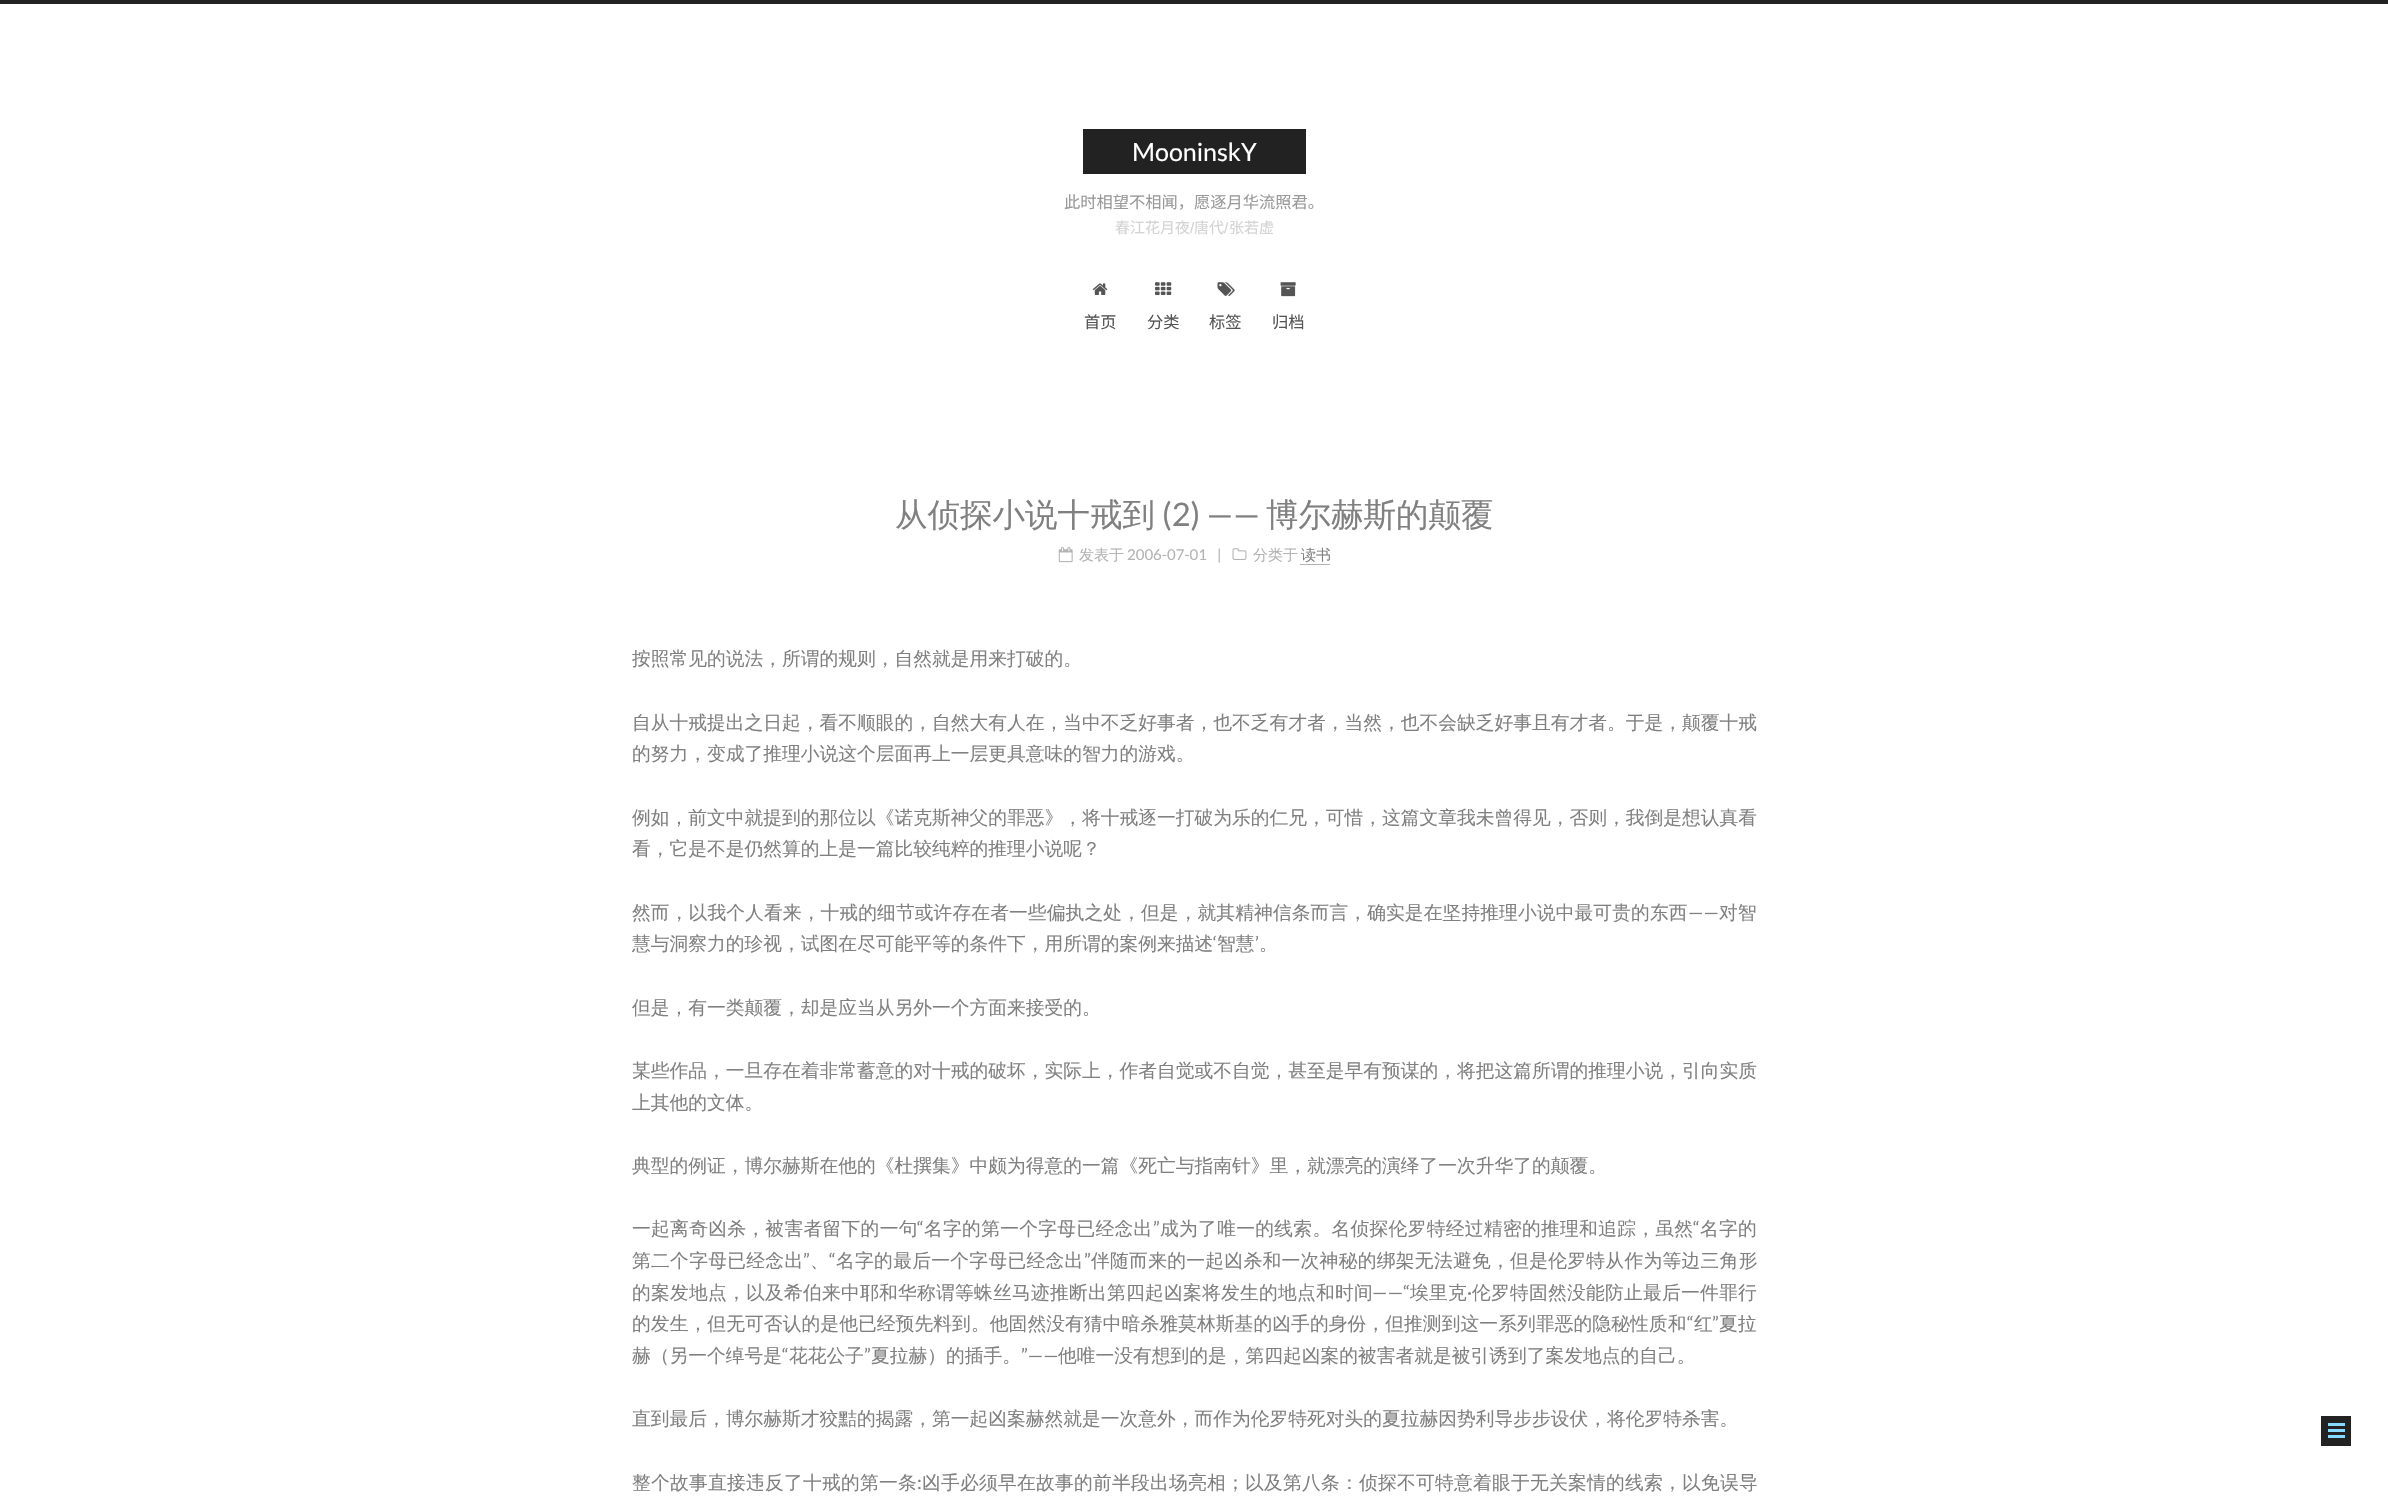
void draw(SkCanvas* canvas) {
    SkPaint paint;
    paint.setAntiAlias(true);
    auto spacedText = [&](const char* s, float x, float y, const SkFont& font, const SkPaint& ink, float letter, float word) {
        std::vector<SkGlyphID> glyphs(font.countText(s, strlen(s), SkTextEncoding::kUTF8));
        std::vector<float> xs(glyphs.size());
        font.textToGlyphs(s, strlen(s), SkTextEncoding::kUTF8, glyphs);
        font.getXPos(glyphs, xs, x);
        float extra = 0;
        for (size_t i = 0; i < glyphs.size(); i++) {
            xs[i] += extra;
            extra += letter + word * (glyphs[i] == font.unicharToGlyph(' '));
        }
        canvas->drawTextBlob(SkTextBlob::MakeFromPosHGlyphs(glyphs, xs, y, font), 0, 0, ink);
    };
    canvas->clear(0xFFFFFFFF);
    paint.setColor(0xFF222222);
    canvas->drawRect(SkRect::MakeXYWH(0, 0, 2388, 4), paint);
    canvas->drawRect(SkRect::MakeXYWH(1083, 129, 223, 45), paint);
    SkFont font1(fontMgr->matchFamilyStyle("Lato", SkFontStyle::Normal()), 25);
    font1.setSubpixel(true);
    paint.setColor(0xFFFFFFFF);
    canvas->drawString("MooninskY", 1132, 161, font1, paint);
    SkFont font2(fontMgr->matchFamilyStyle("Noto Sans CJK SC", SkFontStyle::Normal()), 16.25f);
    font2.setSubpixel(true);
    paint.setColor(0xFF999999);
    canvas->drawString("此时相望不相闻，愿逐月华流照君。", 1064, 208, font2, paint);
    SkFont font3(fontMgr->matchFamilyStyle("Noto Sans CJK SC", SkFontStyle::Normal()), 15);
    font3.setSubpixel(true);
    paint.setColor(0xFFD3D3D3);
    canvas->drawString("春江花月夜", 1115, 233, font3, paint);
    SkFont font4(fontMgr->matchFamilyStyle("Liberation Sans", SkFontStyle::Normal()), 15);
    font4.setSubpixel(true);
    canvas->drawString("/", 1190, 233, font4, paint);
    canvas->drawString("唐代", 1194, 233, font3, paint);
    canvas->drawString("/", 1224, 233, font4, paint);
    canvas->drawString("张若虚", 1229, 233, font3, paint);
    canvas->drawImageRect(SkImages::DeferredFromEncodedData(SkData::MakeFromFileName("img1.png")), SkRect::MakeXYWH(1092, 283, 16, 12), SkSamplingOptions());
    paint.setColor(0xFF555555);
    canvas->drawString("首页", 1084, 328, font2, paint);
    canvas->drawImageRect(SkImages::DeferredFromEncodedData(SkData::MakeFromFileName("img2.png")), SkRect::MakeXYWH(1155, 282, 17, 13), SkSamplingOptions());
    canvas->drawString("分类", 1147, 328, font2, paint);
    canvas->drawImageRect(SkImages::DeferredFromEncodedData(SkData::MakeFromFileName("img3.png")), SkRect::MakeXYWH(1217, 282, 18, 14), SkSamplingOptions());
    canvas->drawString("标签", 1209, 328, font2, paint);
    canvas->drawImageRect(SkImages::DeferredFromEncodedData(SkData::MakeFromFileName("img4.png")), SkRect::MakeXYWH(1280, 282, 16, 15), SkSamplingOptions());
    canvas->drawString("归档", 1272, 328, font2, paint);
    SkFont font5(fontMgr->matchFamilyStyle("WenQuanYi Zen Hei", SkFontStyle(500, SkFontStyle::kNormal_Width, SkFontStyle::kUpright_Slant)), 32.5f);
    font5.setSubpixel(true);
    paint.setColor(0xFF808080);
    canvas->drawString("从侦探小说十戒到", 895, 526, font5, paint);
    SkFont font6(fontMgr->matchFamilyStyle("Lato", SkFontStyle::Normal()), 32.5f);
    font6.setSubpixel(true);
    canvas->drawString("(2) ——", 1162, 526, font6, paint);
    canvas->drawString("博尔赫斯的颠覆", 1266, 526, font5, paint);
    canvas->drawImageRect(SkImages::DeferredFromEncodedData(SkData::MakeFromFileName("img5.png")), SkRect::MakeXYWH(1058, 547, 15, 16), SkSamplingOptions());
    SkFont font7(fontMgr->matchFamilyStyle("WenQuanYi Zen Hei", SkFontStyle(500, SkFontStyle::kNormal_Width, SkFontStyle::kUpright_Slant)), 15);
    font7.setSubpixel(true);
    paint.setColor(0xFFB3B3B3);
    canvas->drawString("发表于", 1079, 560, font7, paint);
    SkFont font8(fontMgr->matchFamilyStyle("Lato", SkFontStyle::Normal()), 15);
    font8.setSubpixel(true);
    canvas->drawString("2006-07-01", 1127, 560, font8, paint);
    canvas->drawString("|", 1217, 560, font8, paint);
    canvas->drawImageRect(SkImages::DeferredFromEncodedData(SkData::MakeFromFileName("img6.png")), SkRect::MakeXYWH(1232, 548, 15, 12), SkSamplingOptions());
    canvas->drawString("分类于", 1253, 560, font7, paint);
    paint.setColor(0xFF808080);
    canvas->drawString("读书", 1301, 560, font7, paint);
    paint.setColor(0xFFB3B3B3);
    canvas->drawRect(SkRect::MakeXYWH(1300, 564, 30, 1), paint);
    SkFont font9(fontMgr->matchFamilyStyle("WenQuanYi Zen Hei", SkFontStyle(500, SkFontStyle::kNormal_Width, SkFontStyle::kUpright_Slant)), 18.75f);
    font9.setSubpixel(true);
    paint.setColor(0xFF808080);
    canvas->drawString("按照常见的说法，所谓的规则，自然就是用来打破的。", 632, 665, font9, paint);
    canvas->drawString("自从十戒提出之日起，看不顺眼的，自然大有人在，当中不乏好事者，也不乏有才者，当然，也不会缺乏好事且有才者。于是，颠覆十戒", 632, 729, font9, paint);
    canvas->drawString("的努力，变成了推理小说这个层面再上一层更具意味的智力的游戏。", 632, 760, font9, paint);
    canvas->drawString("例如，前文中就提到的那位以《诺克斯神父的罪恶》，将十戒逐一打破为乐的仁兄，可惜，这篇文章我未曾得见，否则，我倒是想认真看", 632, 824, font9, paint);
    canvas->drawString("看，它是不是仍然算的上是一篇比较纯粹的推理小说呢？", 632, 855, font9, paint);
    spacedText("然而，以我个人看来，十戒的细节或许存在者一些偏执之处，但是，就其精神信条而言，确实是在坚持推理小说中最可贵的东西", 632, 919, font9, paint, 0.1f, 0);
    SkFont font10(fontMgr->matchFamilyStyle("Lato", SkFontStyle::Normal()), 18.75f);
    font10.setSubpixel(true);
    spacedText("——", 1688, 919, font10, paint, 0.1f, 0);
    spacedText("对智", 1719, 919, font9, paint, 0.1f, 0);
    canvas->drawString("慧与洞察力的珍视，试图在尽可能平等的条件下，用所谓的案例来描述", 632, 950, font9, paint);
    canvas->drawString("‘", 1213, 950, font10, paint);
    canvas->drawString("智慧", 1217, 950, font9, paint);
    canvas->drawString("’", 1255, 950, font10, paint);
    canvas->drawString("。", 1259, 950, font9, paint);
    canvas->drawString("但是，有一类颠覆，却是应当从另外一个方面来接受的。", 632, 1014, font9, paint);
    canvas->drawString("某些作品，一旦存在着非常蓄意的对十戒的破坏，实际上，作者自觉或不自觉，甚至是早有预谋的，将把这篇所谓的推理小说，引向实质", 632, 1077, font9, paint);
    canvas->drawString("上其他的文体。", 632, 1109, font9, paint);
    canvas->drawString("典型的例证，博尔赫斯在他的《杜撰集》中颇为得意的一篇《死亡与指南针》里，就漂亮的演绎了一次升华了的颠覆。", 632, 1172, font9, paint);
    spacedText("一起离奇凶杀，被害者留下的一句", 632, 1235, font9, paint, 0.3f, 0);
    spacedText("“", 917, 1235, font10, paint, 0.3f, 0);
    spacedText("名字的第一个字母已经念出", 924, 1235, font9, paint, 0.3f, 0);
    spacedText("”", 1153, 1235, font10, paint, 0.3f, 0);
    spacedText("成为了唯一的线索。名侦探伦罗特经过精密的推理和追踪，虽然", 1160, 1235, font9, paint, 0.3f, 0);
    spacedText("“", 1693, 1235, font10, paint, 0.3f, 0);
    spacedText("名字的", 1700, 1235, font9, paint, 0.3f, 0);
    spacedText("第二个字母已经念出", 632, 1267, font9, paint, 0.3f, 0);
    spacedText("”", 803, 1267, font10, paint, 0.3f, 0);
    spacedText("“", 829, 1267, font10, paint, 0.3f, 0);
    spacedText("名字的最后一个字母已经念出", 836, 1267, font9, paint, 0.3f, 0);
    spacedText("”", 1084, 1267, font10, paint, 0.3f, 0);
    spacedText("伴随而来的一起凶杀和一次神秘的绑架无法避免，但是伦罗特从作为等边三角形", 1091, 1267, font9, paint, 0.3f, 0);
    spacedText("、", 810, 1267, font9, paint, 0.3f, 0);
    spacedText("的案发地点，以及希伯来中耶和华称谓等蛛丝马迹推断出第四起凶案将发生的地点和时间", 632, 1299, font9, paint, 0.25f, 0);
    spacedText("——“", 1372, 1299, font10, paint, 0.25f, 0);
    spacedText("埃里克", 1410, 1299, font9, paint, 0.25f, 0);
    spacedText("·", 1467, 1299, font10, paint, 0.25f, 0);
    spacedText("伦罗特固然没能防止最后一件罪行", 1472, 1299, font9, paint, 0.25f, 0);
    spacedText("的发生，但无可否认的是他已经预先料到。他固然没有猜中暗杀雅莫林斯基的凶手的身份，但推测到这一系列罪恶的隐秘性质和", 632, 1330, font9, paint, 0.08f, 0);
    spacedText("“", 1687, 1330, font10, paint, 0.08f, 0);
    spacedText("红", 1694, 1330, font9, paint, 0.08f, 0);
    spacedText("”", 1712, 1330, font10, paint, 0.08f, 0);
    spacedText("夏拉", 1719, 1330, font9, paint, 0.08f, 0);
    canvas->drawString("赫（另一个绰号是", 632, 1362, font9, paint);
    canvas->drawString("“", 782, 1362, font10, paint);
    canvas->drawString("花花公子", 789, 1362, font9, paint);
    canvas->drawString("”", 864, 1362, font10, paint);
    canvas->drawString("夏拉赫）的插手。", 871, 1362, font9, paint);
    canvas->drawString("”——", 1021, 1362, font10, paint);
    canvas->drawString("他唯一没有想到的是，第四起凶案的被害者就是被引诱到了案发地点的自己。", 1058, 1362, font9, paint);
    canvas->drawString("直到最后，博尔赫斯才狡黠的揭露，第一起凶案赫然就是一次意外，而作为伦罗特死对头的夏拉赫因势利导步步设伏，将伦罗特杀害。", 632, 1425, font9, paint);
    spacedText("整个故事直接违反了十戒的第一条", 632, 1489, font9, paint, 0.25f, 0);
    spacedText(":", 917, 1489, font10, paint, 0.25f, 0);
    spacedText("凶手必须早在故事的前半段出场亮相；以及第八条：侦探不可特意着眼于无关案情的线索，以免误导", 922, 1489, font9, paint, 0.25f, 0);
    paint.setColor(0xFF222222);
    canvas->drawRect(SkRect::MakeXYWH(2321, 1416, 30, 30), paint);
    paint.setColor(0xFF87DAFF);
    canvas->drawRect(SkRect::MakeXYWH(2328, 1423, 17, 3), paint);
    canvas->drawRect(SkRect::MakeXYWH(2328, 1429, 17, 3), paint);
    canvas->drawRect(SkRect::MakeXYWH(2328, 1435, 17, 3), paint);
}
